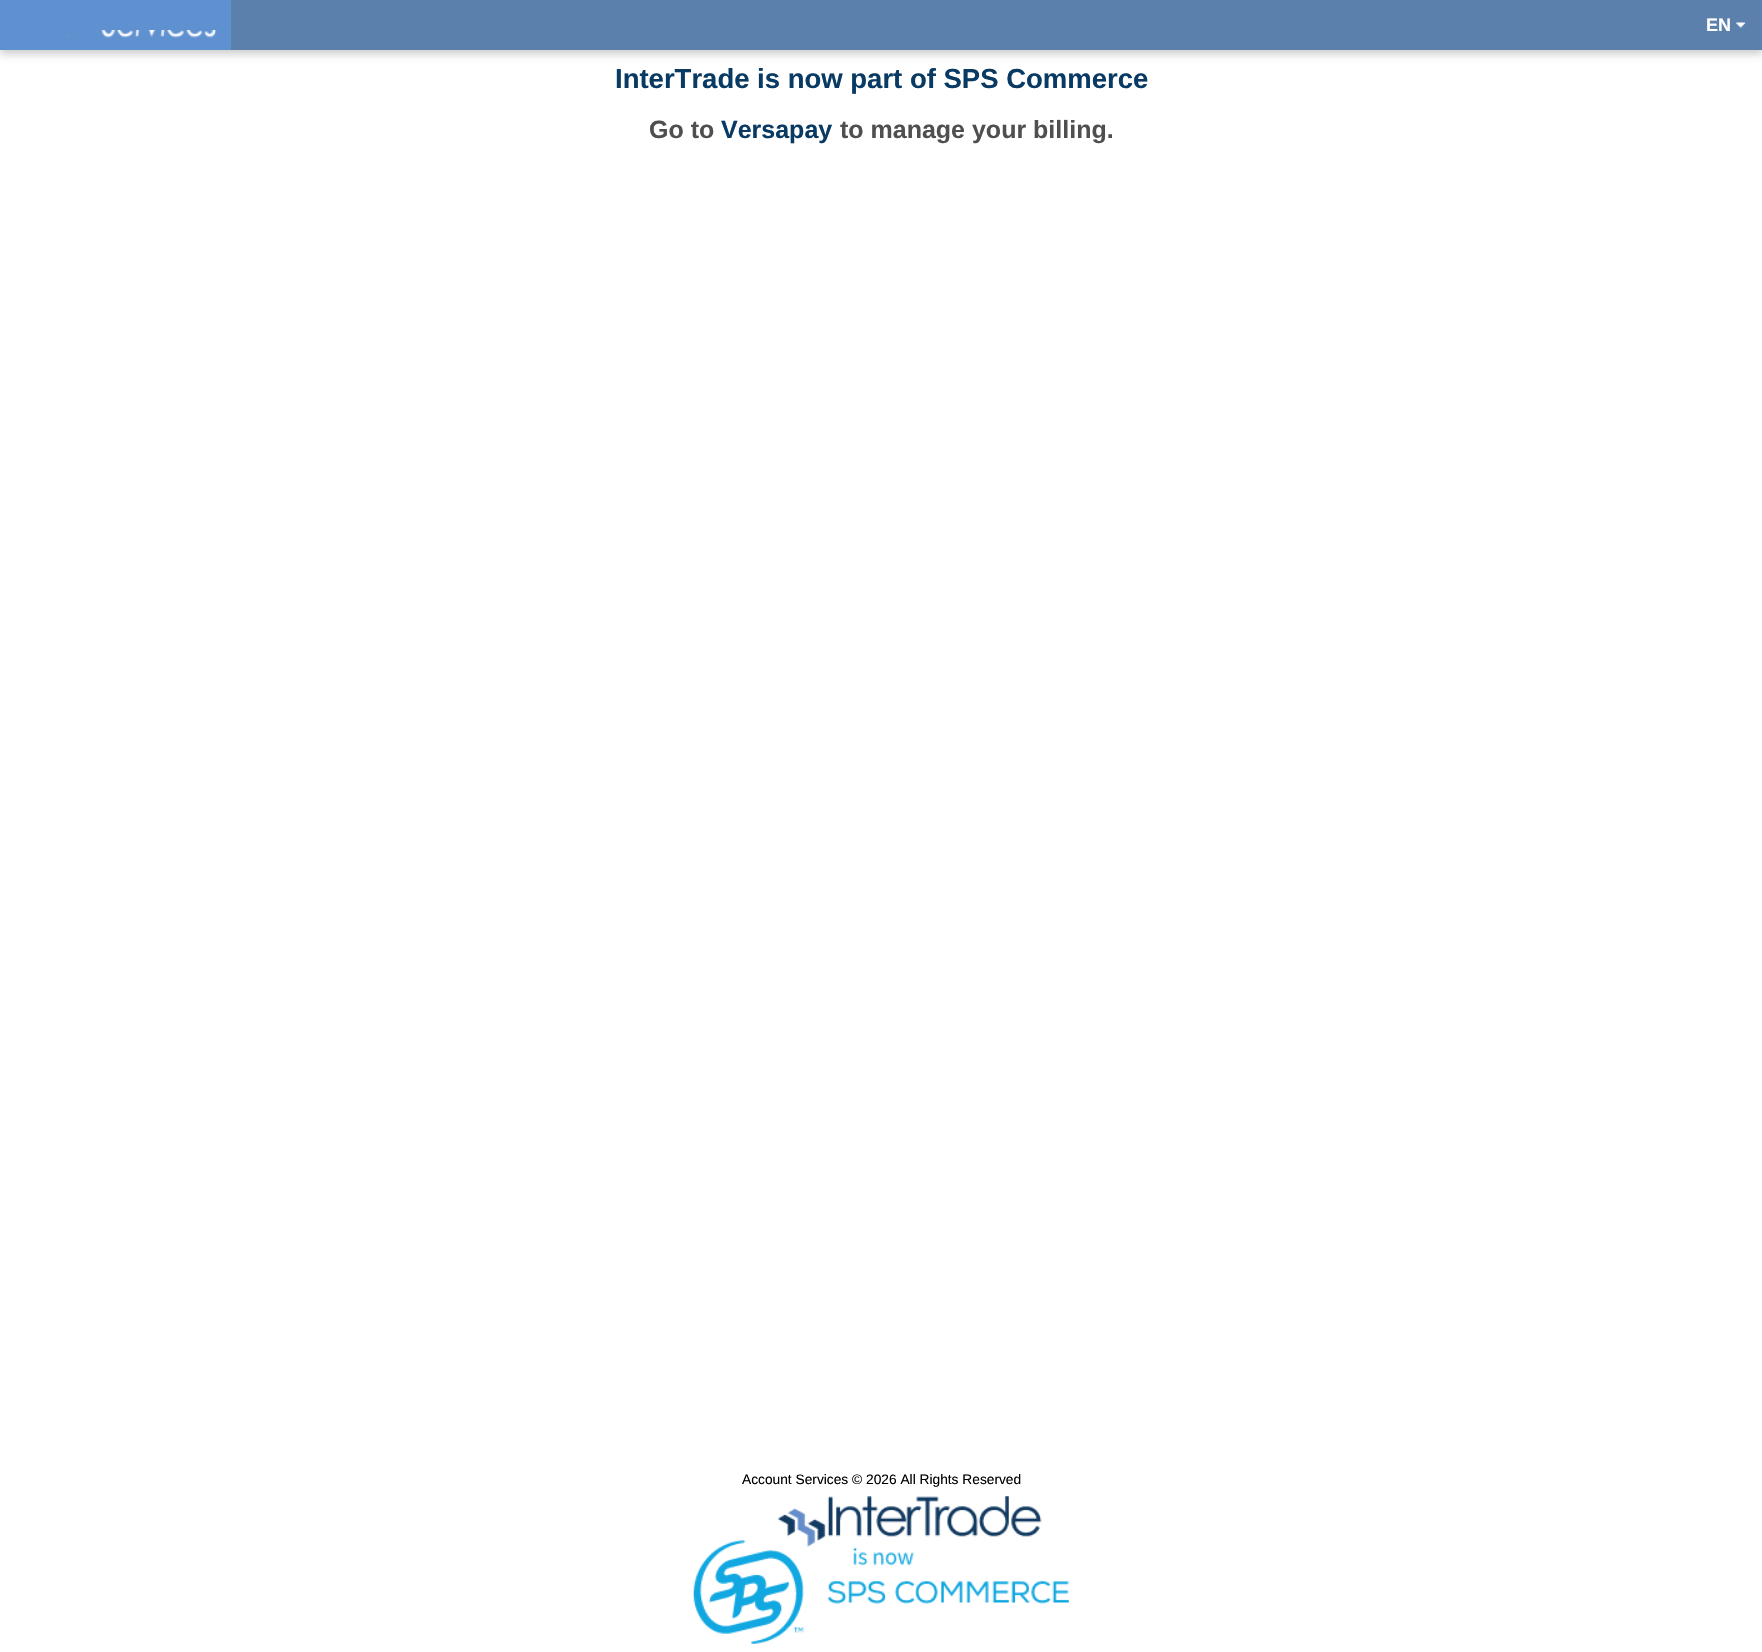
void draw(SkCanvas* canvas) {
    SkPaint paint;
    paint.setAntiAlias(true);
    canvas->clear(0xFFFFFFFF);
    paint.setColor(0x33000000);
    paint.setMaskFilter(SkMaskFilter::MakeBlur(kNormal_SkBlurStyle, 4));
    canvas->drawRect(SkRect::MakeXYWH(0, 4, 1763, 50), paint);
    paint.setMaskFilter(nullptr);
    paint.setColor(0xFF5B80AB);
    canvas->drawRect(SkRect::MakeXYWH(231, 0, 1531, 50), paint);
    paint.setColor(0xFF5F91D0);
    canvas->drawRect(SkRect::MakeXYWH(0, 0, 231, 50), paint);
    canvas->drawImageRect(SkImages::DeferredFromEncodedData(SkData::MakeFromFileName("img1.png")), SkRect::MakeXYWH(66, 30, 151, 8), SkSamplingOptions());
    SkFont font1(fontMgr->matchFamilyStyle("Liberation Sans", SkFontStyle::Bold()), 18);
    font1.setSubpixel(true);
    paint.setColor(0xFFFFFFFF);
    canvas->drawString("EN", 1706, 31, font1, paint);
    canvas->drawImageRect(SkImages::DeferredFromEncodedData(SkData::MakeFromFileName("img2.png")), SkRect::MakeXYWH(1736, 22, 10, 6), SkSamplingOptions());
    SkFont font2(fontMgr->matchFamilyStyle("Liberation Sans", SkFontStyle::Bold()), 27.5f);
    font2.setSubpixel(true);
    paint.setColor(0xFF093A63);
    canvas->drawString("InterTrade is now part of SPS Commerce", 615, 88, font2, paint);
    SkFont font3(fontMgr->matchFamilyStyle("Liberation Sans", SkFontStyle::Bold()), 25);
    font3.setSubpixel(true);
    paint.setColor(0xFF4F4F4F);
    canvas->drawString("Go to", 649, 138, font3, paint);
    paint.setColor(0xFF093A63);
    canvas->drawString("Versapay", 721, 138, font3, paint);
    paint.setColor(0xFF4F4F4F);
    canvas->drawString("to manage your billing.", 840, 138, font3, paint);
    SkFont font4(fontMgr->matchFamilyStyle("Liberation Sans", SkFontStyle::Normal()), 13.75f);
    font4.setSubpixel(true);
    paint.setColor(0xFF000000);
    canvas->drawString("Account Services © 2026 All Rights Reserved", 742, 1484, font4, paint);
    canvas->drawImageRect(SkImages::DeferredFromEncodedData(SkData::MakeFromFileName("img3.png")), SkRect::MakeXYWH(693, 1496, 376, 148), SkSamplingOptions());
}
